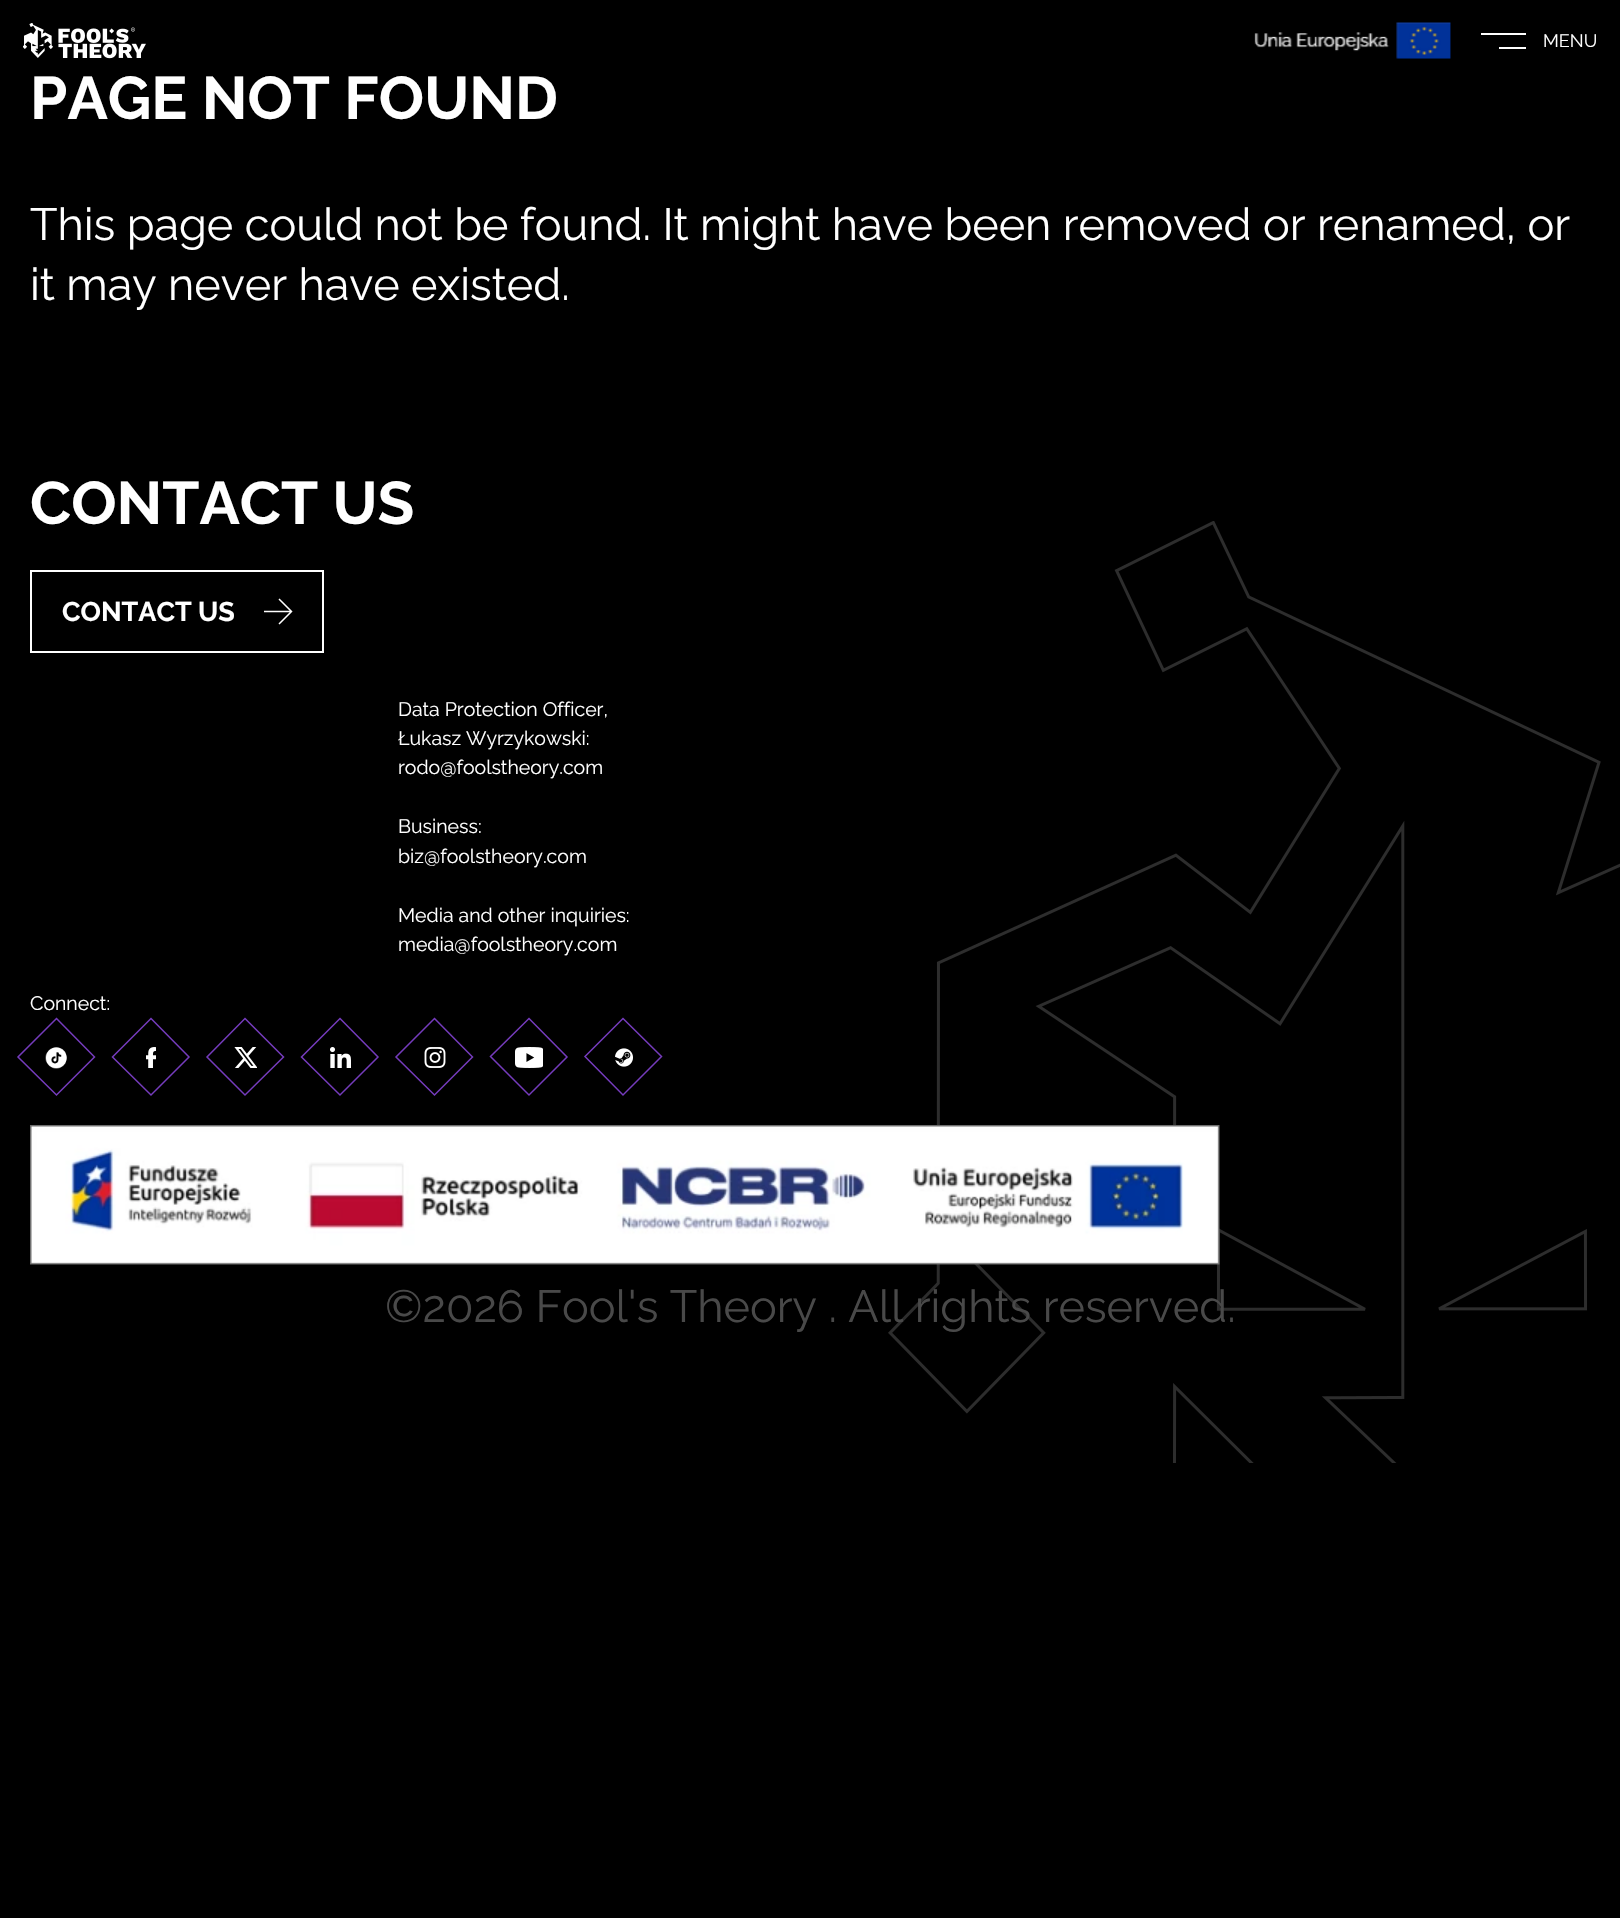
void draw(SkCanvas* canvas) {
    SkPaint paint;
    paint.setAntiAlias(true);
    canvas->clear(0xFF000000);
    canvas->drawImageRect(SkImages::DeferredFromEncodedData(SkData::MakeFromFileName("img1.png")), SkRect::MakeXYWH(23, 23, 123, 36), SkSamplingOptions());
    canvas->drawImageRect(SkImages::DeferredFromEncodedData(SkData::MakeFromFileName("img2.png")), SkRect::MakeXYWH(1254, 22, 197, 37), SkSamplingOptions());
    paint.setColor(0xFFFFFFFF);
    canvas->drawRect(SkRect::MakeXYWH(1481, 33, 45, 2), paint);
    canvas->drawRect(SkRect::MakeXYWH(1499, 47, 27, 2), paint);
    SkFont font1(fontMgr->matchFamilyStyle("Raleway", SkFontStyle::Normal()), 18);
    font1.setSubpixel(true);
    canvas->drawString("MENU", 1543, 47, font1, paint);
    SkFont font2(fontMgr->matchFamilyStyle("Raleway", SkFontStyle::Bold()), 60);
    font2.setSubpixel(true);
    canvas->drawString("PAGE NOT FOUND", 30, 119, font2, paint);
    SkFont font3(fontMgr->matchFamilyStyle("Raleway", SkFontStyle::Normal()), 45);
    font3.setSubpixel(true);
    canvas->drawString("This page could not be found. It might have been removed or renamed, or", 30, 240, font3, paint);
    canvas->drawString("it may never have existed.", 30, 300, font3, paint);
    canvas->drawString("CONTACT US", 30, 524, font2, paint);
    paint.setStyle(SkPaint::kStroke_Style);
    paint.setStrokeWidth(2);
    canvas->drawRect(SkRect::MakeXYWH(31, 571, 292, 81), paint);
    SkFont font4(fontMgr->matchFamilyStyle("Raleway", SkFontStyle::Bold()), 27);
    font4.setSubpixel(true);
    paint.setStyle(SkPaint::kFill_Style);
    canvas->drawString("CONTACT US", 62, 621, font4, paint);
    paint.setStyle(SkPaint::kStroke_Style);
    paint.setStrokeWidth(1.5f);
    canvas->drawPath(SkPathBuilder().moveTo(279, 599).lineTo(291.5f, 611.5f).lineTo(279, 624).moveTo(291.5f, 611.5f).lineTo(264, 611.5f).detach(), paint);
    canvas->drawImageRect(SkImages::DeferredFromEncodedData(SkData::MakeFromFileName("img3.png")), SkRect::MakeXYWH(888, 521, 732, 942), SkSamplingOptions());
    SkFont font5(fontMgr->matchFamilyStyle("Raleway", SkFontStyle::Normal()), 19.5f);
    font5.setSubpixel(true);
    paint.setStyle(SkPaint::kFill_Style);
    canvas->drawString("Data Protection Officer,", 398, 716, font5, paint);
    canvas->drawString("Łukasz Wyrzykowski:", 398, 745, font5, paint);
    canvas->drawString("rodo@foolstheory.com", 398, 774, font5, paint);
    canvas->drawString("Business:", 398, 833, font5, paint);
    canvas->drawString("biz@foolstheory.com", 398, 863, font5, paint);
    canvas->drawString("Media and other inquiries:", 398, 922, font5, paint);
    canvas->drawString("media@foolstheory.com", 398, 951, font5, paint);
    canvas->drawString("Connect:", 30, 1010, font5, paint);
    canvas->drawImageRect(SkImages::DeferredFromEncodedData(SkData::MakeFromFileName("img4.png")), SkRect::MakeXYWH(45, 1047, 22, 22), SkSamplingOptions());
    paint.setStyle(SkPaint::kStroke_Style);
    paint.setColor(0xFF753BBD);
    canvas->drawPath(SkPathBuilder().moveTo(56.5f, 1018.5f).lineTo(94.5f, 1057).lineTo(56.5f, 1095).lineTo(18, 1057).close().detach(), paint);
    canvas->drawImageRect(SkImages::DeferredFromEncodedData(SkData::MakeFromFileName("img5.png")), SkRect::MakeXYWH(146, 1047, 10, 21), SkSamplingOptions());
    canvas->drawPath(SkPathBuilder().moveTo(151, 1018.5f).lineTo(189, 1057).lineTo(151, 1095).lineTo(112.5f, 1057).close().detach(), paint);
    canvas->drawImageRect(SkImages::DeferredFromEncodedData(SkData::MakeFromFileName("img6.png")), SkRect::MakeXYWH(234, 1047, 23, 21), SkSamplingOptions());
    canvas->drawPath(SkPathBuilder().moveTo(245, 1018.5f).lineTo(283.5f, 1057).lineTo(245, 1095).lineTo(207, 1057).close().detach(), paint);
    canvas->drawImageRect(SkImages::DeferredFromEncodedData(SkData::MakeFromFileName("img7.png")), SkRect::MakeXYWH(330, 1047, 21, 21), SkSamplingOptions());
    canvas->drawPath(SkPathBuilder().moveTo(340, 1018.5f).lineTo(378, 1057).lineTo(340, 1095).lineTo(301.5f, 1057).close().detach(), paint);
    canvas->drawImageRect(SkImages::DeferredFromEncodedData(SkData::MakeFromFileName("img8.png")), SkRect::MakeXYWH(424, 1047, 22, 21), SkSamplingOptions());
    canvas->drawPath(SkPathBuilder().moveTo(434.5f, 1018.5f).lineTo(472.5f, 1057).lineTo(434.5f, 1095).lineTo(396, 1057).close().detach(), paint);
    canvas->drawImageRect(SkImages::DeferredFromEncodedData(SkData::MakeFromFileName("img9.png")), SkRect::MakeXYWH(515, 1047, 28, 21), SkSamplingOptions());
    canvas->drawPath(SkPathBuilder().moveTo(529, 1018.5f).lineTo(567, 1057).lineTo(529, 1095).lineTo(490.5f, 1056.5f).close().detach(), paint);
    canvas->drawImageRect(SkImages::DeferredFromEncodedData(SkData::MakeFromFileName("img10.png")), SkRect::MakeXYWH(615, 1048, 18, 19), SkSamplingOptions());
    canvas->drawPath(SkPathBuilder().moveTo(623, 1018.5f).lineTo(661.5f, 1056.5f).lineTo(623, 1095).lineTo(585, 1056.5f).close().detach(), paint);
    canvas->drawImageRect(SkImages::DeferredFromEncodedData(SkData::MakeFromFileName("img11.png")), SkRect::MakeXYWH(30, 1125, 1190, 140), SkSamplingOptions());
    paint.setStyle(SkPaint::kFill_Style);
    paint.setColor(0xFF494949);
    canvas->drawString("©2026 Fool's Theory . All rights reserved.", 385, 1322, font3, paint);
}
